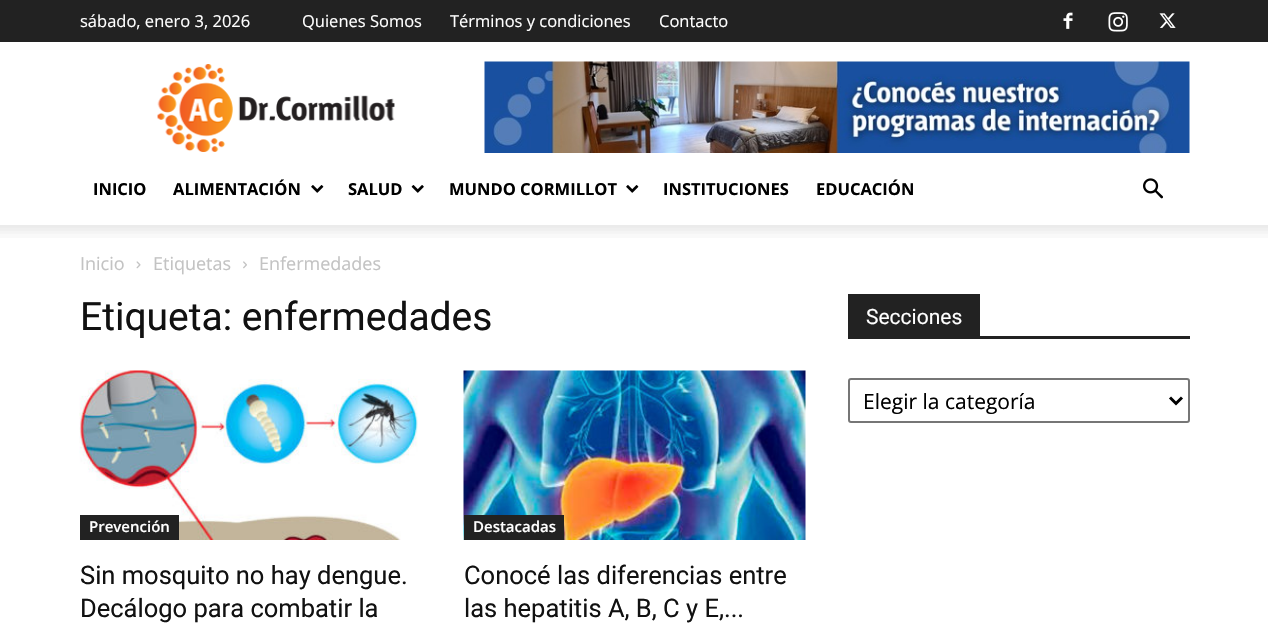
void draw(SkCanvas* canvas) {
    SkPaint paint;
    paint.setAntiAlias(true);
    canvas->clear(0xFFFFFFFF);
    paint.setColor(0xFF222222);
    canvas->drawRect(SkRect::MakeXYWH(0, 0, 1268, 42), paint);
    SkFont font1(fontMgr->matchFamilyStyle("Open Sans", SkFontStyle::Normal()), 16.5f);
    font1.setSubpixel(true);
    paint.setColor(0xFFFFFFFF);
    canvas->drawString("sábado, enero 3, 2026", 80, 27, font1, paint);
    canvas->drawString("Quienes Somos", 302, 27, font1, paint);
    canvas->drawString("Términos y condiciones", 450, 27, font1, paint);
    canvas->drawString("Contacto", 659, 27, font1, paint);
    canvas->drawImageRect(SkImages::DeferredFromEncodedData(SkData::MakeFromFileName("img1.png")), SkRect::MakeXYWH(1063, 12, 10, 17), SkSamplingOptions());
    canvas->drawImageRect(SkImages::DeferredFromEncodedData(SkData::MakeFromFileName("img2.png")), SkRect::MakeXYWH(1108, 12, 20, 20), SkSamplingOptions());
    canvas->drawImageRect(SkImages::DeferredFromEncodedData(SkData::MakeFromFileName("img3.png")), SkRect::MakeXYWH(1159, 13, 17, 15), SkSamplingOptions());
    canvas->drawImageRect(SkImages::DeferredFromEncodedData(SkData::MakeFromFileName("img4.png")), SkRect::MakeXYWH(157, 64, 238, 88), SkSamplingOptions());
    canvas->drawImageRect(SkImages::DeferredFromEncodedData(SkData::MakeFromFileName("img5.png")), SkRect::MakeXYWH(484, 61, 706, 92), SkSamplingOptions());
    SkFont font2(fontMgr->matchFamilyStyle("Open Sans", SkFontStyle::Bold()), 16.5f);
    font2.setSubpixel(true);
    paint.setColor(0xFF000000);
    canvas->drawString("INICIO", 93, 195, font2, paint);
    canvas->drawString("ALIMENTACIÓN", 173, 195, font2, paint);
    canvas->drawImageRect(SkImages::DeferredFromEncodedData(SkData::MakeFromFileName("img6.png")), SkRect::MakeXYWH(311, 185, 13, 8), SkSamplingOptions());
    canvas->drawString("SALUD", 348, 195, font2, paint);
    canvas->drawImageRect(SkImages::DeferredFromEncodedData(SkData::MakeFromFileName("img7.png")), SkRect::MakeXYWH(411, 185, 13, 8), SkSamplingOptions());
    canvas->drawString("MUNDO CORMILLOT", 449, 195, font2, paint);
    canvas->drawImageRect(SkImages::DeferredFromEncodedData(SkData::MakeFromFileName("img6.png")), SkRect::MakeXYWH(626, 185, 13, 8), SkSamplingOptions());
    canvas->drawString("INSTITUCIONES", 663, 195, font2, paint);
    canvas->drawString("EDUCACIÓN", 816, 195, font2, paint);
    canvas->drawImageRect(SkImages::DeferredFromEncodedData(SkData::MakeFromFileName("img8.png")), SkRect::MakeXYWH(1143, 178, 20, 21), SkSamplingOptions());
    canvas->drawImageRect(SkImages::DeferredFromEncodedData(SkData::MakeFromFileName("img9.png")), SkRect::MakeXYWH(0, 225, 1268, 13), SkSamplingOptions());
    SkFont font3(fontMgr->matchFamilyStyle("Open Sans", SkFontStyle::Normal()), 18);
    font3.setSubpixel(true);
    paint.setColor(0xFFC3C3C3);
    canvas->drawString("Inicio", 80, 270, font3, paint);
    canvas->drawImageRect(SkImages::DeferredFromEncodedData(SkData::MakeFromFileName("img10.png")), SkRect::MakeXYWH(136, 261, 5, 8), SkSamplingOptions());
    canvas->drawString("Etiquetas", 153, 270, font3, paint);
    canvas->drawImageRect(SkImages::DeferredFromEncodedData(SkData::MakeFromFileName("img11.png")), SkRect::MakeXYWH(243, 261, 4, 8), SkSamplingOptions());
    canvas->drawString("Enfermedades", 259, 270, font3, paint);
    SkFont font4(fontMgr->matchFamilyStyle("Roboto", SkFontStyle::Normal()), 39);
    font4.setSubpixel(true);
    paint.setColor(0xFF111111);
    canvas->drawString("Etiqueta: enfermedades", 80, 330, font4, paint);
    canvas->drawImageRect(SkImages::DeferredFromEncodedData(SkData::MakeFromFileName("img12.png")), SkRect::MakeXYWH(79, 370, 339, 170), SkSamplingOptions());
    paint.setColor(0xFF222222);
    canvas->drawRect(SkRect::MakeXYWH(80, 515, 99, 25), paint);
    SkFont font5(fontMgr->matchFamilyStyle("Open Sans", SkFontStyle(600, SkFontStyle::kNormal_Width, SkFontStyle::kUpright_Slant)), 15);
    font5.setSubpixel(true);
    paint.setColor(0xFFFFFFFF);
    canvas->drawString("Prevención", 89, 532, font5, paint);
    SkFont font6(fontMgr->matchFamilyStyle("Roboto", SkFontStyle::Normal()), 25.5f);
    font6.setSubpixel(true);
    paint.setColor(0xFF111111);
    canvas->drawString("Sin mosquito no hay dengue.", 80, 584, font6, paint);
    canvas->drawString("Decálogo para combatir la", 80, 617, font6, paint);
    canvas->drawImageRect(SkImages::DeferredFromEncodedData(SkData::MakeFromFileName("img13.png")), SkRect::MakeXYWH(463, 370, 343, 170), SkSamplingOptions());
    paint.setColor(0xFF222222);
    canvas->drawRect(SkRect::MakeXYWH(464, 515, 100, 25), paint);
    paint.setColor(0xFFFFFFFF);
    canvas->drawString("Destacadas", 473, 532, font5, paint);
    paint.setColor(0xFF111111);
    canvas->drawString("Conocé las diferencias entre", 464, 584, font6, paint);
    canvas->drawString("las hepatitis A, B, C y E,...", 464, 617, font6, paint);
    paint.setColor(0xFF222222);
    canvas->drawRect(SkRect::MakeXYWH(848, 336, 342, 3), paint);
    canvas->drawRect(SkRect::MakeXYWH(848, 294, 132, 42), paint);
    SkFont font7(fontMgr->matchFamilyStyle("Roboto", SkFontStyle::Normal()), 21);
    font7.setSubpixel(true);
    paint.setColor(0xFFFFFFFF);
    canvas->drawString("Secciones", 866, 324, font7, paint);
    paint.setStyle(SkPaint::kStroke_Style);
    paint.setStrokeWidth(2);
    paint.setColor(0xFF767676);
    canvas->drawRoundRect(SkRect::MakeXYWH(849, 379, 340, 43), 2, 2, paint);
    paint.setStrokeWidth(3);
    paint.setColor(0xFF000000);
    canvas->drawPath(SkPathBuilder().moveTo(1170, 397.5f).lineTo(1176, 403.5f).lineTo(1182, 397.5f).detach(), paint);
    SkFont font8(fontMgr->matchFamilyStyle("Open Sans", SkFontStyle::Normal()), 21);
    font8.setSubpixel(true);
    paint.setStyle(SkPaint::kFill_Style);
    canvas->drawString("Elegir la categoría", 863, 409, font8, paint);
}
